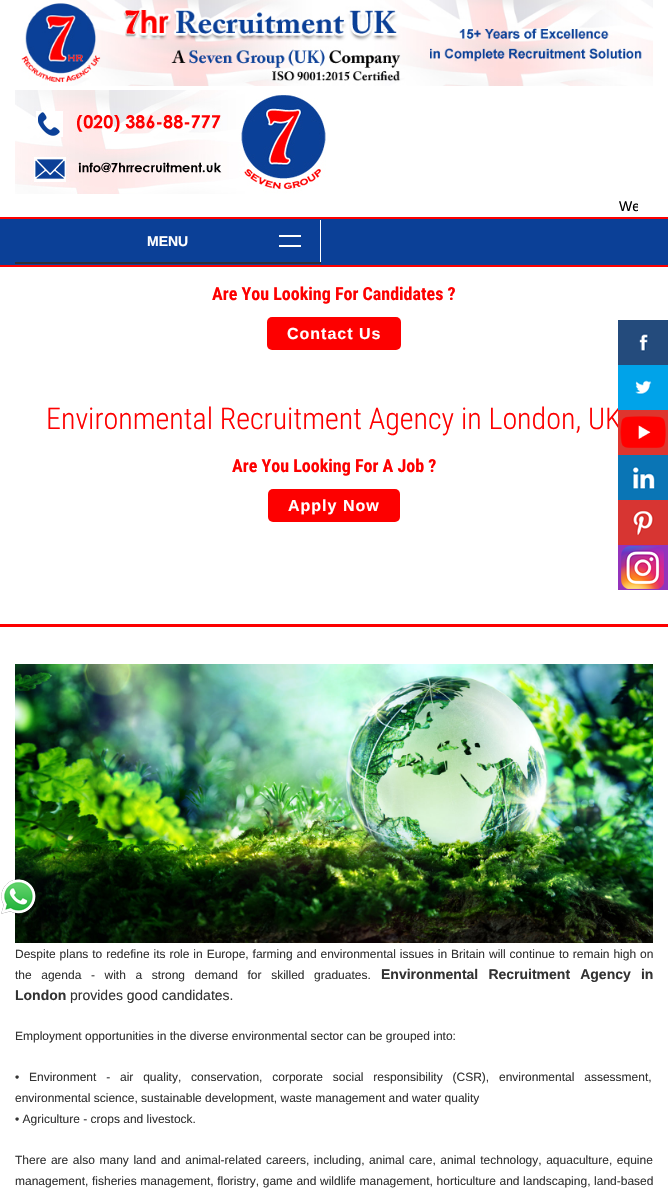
void draw(SkCanvas* canvas) {
    SkPaint paint;
    paint.setAntiAlias(true);
    auto spacedText = [&](const char* s, float x, float y, const SkFont& font, const SkPaint& ink, float letter, float word) {
        std::vector<SkGlyphID> glyphs(font.countText(s, strlen(s), SkTextEncoding::kUTF8));
        std::vector<float> xs(glyphs.size());
        font.textToGlyphs(s, strlen(s), SkTextEncoding::kUTF8, glyphs);
        font.getXPos(glyphs, xs, x);
        float extra = 0;
        for (size_t i = 0; i < glyphs.size(); i++) {
            xs[i] += extra;
            extra += letter + word * (glyphs[i] == font.unicharToGlyph(' '));
        }
        canvas->drawTextBlob(SkTextBlob::MakeFromPosHGlyphs(glyphs, xs, y, font), 0, 0, ink);
    };
    canvas->clear(0xFFFFFFFF);
    canvas->drawImageRect(SkImages::DeferredFromEncodedData(SkData::MakeFromFileName("img1.png")), SkRect::MakeXYWH(21, 0, 632, 86), SkSamplingOptions());
    canvas->drawImageRect(SkImages::DeferredFromEncodedData(SkData::MakeFromFileName("img2.png")), SkRect::MakeXYWH(15, 90, 311, 104), SkSamplingOptions());
    canvas->save();
    canvas->clipRect(SkRect::MakeXYWH(30, 198, 608, 16));
    SkFont font1(fontMgr->matchFamilyStyle("Liberation Sans", SkFontStyle::Normal()), 14);
    font1.setSubpixel(true);
    paint.setColor(0xFF000000);
    canvas->drawString("We", 619, 211, font1, paint);
    canvas->restore();
    paint.setColor(0xFF0B4097);
    canvas->drawRect(SkRect::MakeXYWH(0, 219, 668, 46), paint);
    paint.setColor(0xFFFD0000);
    canvas->drawRect(SkRect::MakeXYWH(0, 217, 668, 2), paint);
    canvas->drawRect(SkRect::MakeXYWH(0, 265, 668, 2), paint);
    paint.setColor(0xFF2B2F3A);
    canvas->drawRect(SkRect::MakeXYWH(15, 262, 306, 2), paint);
    paint.setColor(0xFFFFFFFF);
    canvas->drawRect(SkRect::MakeXYWH(320, 220, 1, 42), paint);
    SkFont font2(fontMgr->matchFamilyStyle("Liberation Sans", SkFontStyle::Bold()), 14);
    font2.setSubpixel(true);
    canvas->drawString("MENU", 147, 246, font2, paint);
    canvas->drawRect(SkRect::MakeXYWH(279, 235, 22, 2), paint);
    canvas->drawRect(SkRect::MakeXYWH(279, 245, 22, 2), paint);
    paint.setColor(0xFFFD0000);
    canvas->drawRect(SkRect::MakeXYWH(0, 624, 668, 3), paint);
    SkFont font3(fontMgr->matchFamilyStyle("Roboto Condensed", SkFontStyle::Bold()), 18);
    font3.setSubpixel(true);
    canvas->drawString("Are You Looking For Candidates ?", 212, 300, font3, paint);
    canvas->drawRoundRect(SkRect::MakeXYWH(267, 317, 134, 33), 5, 5, paint);
    SkFont font4(fontMgr->matchFamilyStyle("Liberation Sans", SkFontStyle::Bold()), 16);
    font4.setSubpixel(true);
    paint.setColor(0xFFFFFFFF);
    spacedText("Contact Us", 287, 339, font4, paint, 1, 0);
    SkFont font5(fontMgr->matchFamilyStyle("Roboto Condensed", SkFontStyle(300, SkFontStyle::kNormal_Width, SkFontStyle::kUpright_Slant)), 30);
    font5.setSubpixel(true);
    paint.setColor(0xFFFD0000);
    canvas->drawString("Environmental Recruitment Agency in London, UK", 46, 429, font5, paint);
    canvas->drawString("Are You Looking For A Job ?", 232, 472, font3, paint);
    canvas->drawRoundRect(SkRect::MakeXYWH(268, 489, 132, 33), 5, 5, paint);
    paint.setColor(0xFFFFFFFF);
    spacedText("Apply Now", 288, 511, font4, paint, 1, 0);
    paint.setColor(0xFF244B7C);
    canvas->drawRect(SkRect::MakeXYWH(618, 320, 50, 45), paint);
    canvas->drawImageRect(SkImages::DeferredFromEncodedData(SkData::MakeFromFileName("img3.png")), SkRect::MakeXYWH(639, 333, 10, 19), SkSamplingOptions());
    paint.setColor(0xFF00A3E9);
    canvas->drawRect(SkRect::MakeXYWH(618, 365, 50, 45), paint);
    canvas->drawImageRect(SkImages::DeferredFromEncodedData(SkData::MakeFromFileName("img4.png")), SkRect::MakeXYWH(635, 380, 17, 15), SkSamplingOptions());
    paint.setColor(0xFFDE352E);
    canvas->drawRect(SkRect::MakeXYWH(618, 410, 50, 45), paint);
    canvas->drawImageRect(SkImages::DeferredFromEncodedData(SkData::MakeFromFileName("img5.png")), SkRect::MakeXYWH(620, 416, 46, 32), SkSamplingOptions());
    paint.setColor(0xFF0A75B5);
    canvas->drawRect(SkRect::MakeXYWH(618, 455, 50, 45), paint);
    canvas->drawImageRect(SkImages::DeferredFromEncodedData(SkData::MakeFromFileName("img6.png")), SkRect::MakeXYWH(631, 466, 25, 24), SkSamplingOptions());
    paint.setColor(0xFFD73532);
    canvas->drawRect(SkRect::MakeXYWH(618, 500, 50, 45), paint);
    canvas->drawImageRect(SkImages::DeferredFromEncodedData(SkData::MakeFromFileName("img7.png")), SkRect::MakeXYWH(632, 510, 22, 25), SkSamplingOptions());
    paint.setColor(0xFF9333BB);
    canvas->drawRect(SkRect::MakeXYWH(618, 545, 50, 45), paint);
    canvas->drawImageRect(SkImages::DeferredFromEncodedData(SkData::MakeFromFileName("img8.png")), SkRect::MakeXYWH(621, 546, 43, 43), SkSamplingOptions());
    canvas->drawImageRect(SkImages::DeferredFromEncodedData(SkData::MakeFromFileName("img10.png")), SkRect::MakeXYWH(15, 664, 638, 279), SkSamplingOptions());
    canvas->drawImageRect(SkImages::DeferredFromEncodedData(SkData::MakeFromFileName("img9.png")), SkRect::MakeXYWH(1, 879, 35, 35), SkSamplingOptions());
    SkFont font6(fontMgr->matchFamilyStyle("Liberation Sans", SkFontStyle::Normal()), 12);
    font6.setSubpixel(true);
    paint.setColor(0xFF333333);
    spacedText("Despite plans to redefine its role in Europe, farming and environmental issues in Britain will continue to remain high on", 15, 958, font6, paint, 0, 0.6f);
    spacedText("the agenda - with a strong demand for skilled graduates.", 15, 979, font6, paint, 0, 6.25f);
    spacedText("Environmental Recruitment Agency in", 381, 979, font2, paint, 0, 6.25f);
    canvas->drawString("London", 15, 1000, font2, paint);
    canvas->drawString("provides good candidates.", 70, 1000, font1, paint);
    canvas->drawString("Employment opportunities in the diverse environmental sector can be grouped into:", 15, 1040, font6, paint);
    canvas->drawString("•", 15, 1081, font6, paint);
    spacedText("Environment - air quality, conservation, corporate social responsibility (CSR), environmental assessment,", 29, 1081, font6, paint, 0, 6.5f);
    canvas->drawString("environmental science, sustainable development, waste management and water quality", 15, 1102, font6, paint);
    canvas->drawString("• Agriculture - crops and livestock.", 15, 1123, font6, paint);
    spacedText("There are also many land and animal-related careers, including, animal care, animal technology, aquaculture, equine", 15, 1164, font6, paint, 0, 1.25f);
    spacedText("management, fisheries management, floristry, game and wildlife management, horticulture and landscaping, land-based", 15, 1185, font6, paint, 0, 0.25f);
}
